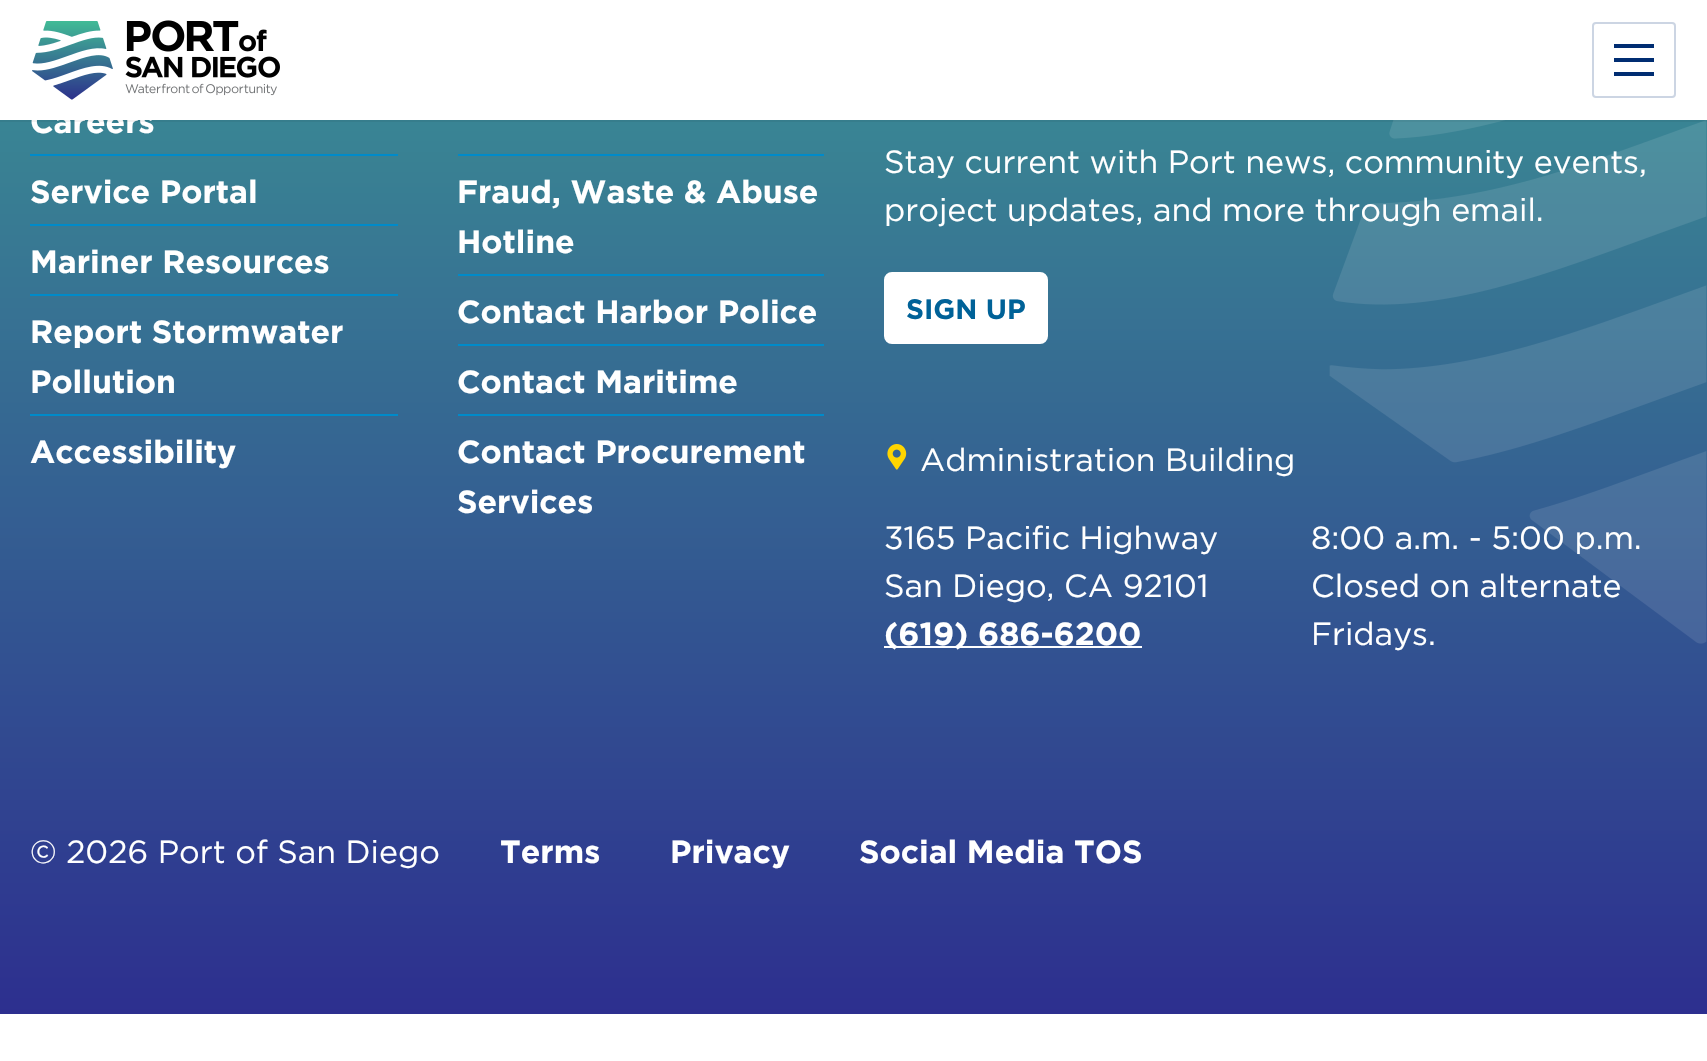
void draw(SkCanvas* canvas) {
    SkPaint paint;
    paint.setAntiAlias(true);
    canvas->clear(0xFFFFFFFF);
    {
        const SkColor colors[] = {0xFF3D9D95, 0xFF2D2F8F};
        const float stops[] = {0, 1};
        const SkPoint ends[] = {{854, -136}, {854, 1014}};
        paint.setShader(SkGradientShader::MakeLinear(ends, colors, stops, 2, SkTileMode::kClamp));
        paint.setAlpha(255);
    }
    canvas->drawRect(SkRect::MakeXYWH(0, 120, 1707, 894), paint);
    SkFont font1(fontMgr->matchFamilyStyle("Gotham", SkFontStyle::Bold()), 32);
    font1.setSubpixel(true);
    paint.setShader(nullptr);
    paint.setColor(0xFFFFFFFF);
    canvas->drawString("Careers", 30, 133, font1, paint);
    canvas->drawImageRect(SkImages::DeferredFromEncodedData(SkData::MakeFromFileName("img3.png")), SkRect::MakeXYWH(1329, 120, 378, 524), SkSamplingOptions());
    paint.setStyle(SkPaint::kStroke_Style);
    paint.setStrokeWidth(2);
    paint.setColor(0x0D000000);
    canvas->drawRect(SkRect::MakeXYWH(-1, -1, 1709, 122), paint);
    canvas->drawImageRect(SkImages::DeferredFromEncodedData(SkData::MakeFromFileName("img1.png")), SkRect::MakeXYWH(32, 20, 248, 80), SkSamplingOptions());
    paint.setColor(0xFFCCD5E3);
    canvas->drawRoundRect(SkRect::MakeXYWH(1593, 23, 82, 74), 3, 3, paint);
    paint.setStyle(SkPaint::kFill_Style);
    paint.setColor(0xFF002D72);
    canvas->drawRect(SkRect::MakeXYWH(1614, 44, 40, 4), paint);
    canvas->drawRect(SkRect::MakeXYWH(1614, 58, 40, 4), paint);
    canvas->drawRect(SkRect::MakeXYWH(1614, 72, 40, 4), paint);
    paint.setColor(0xFF008BCA);
    canvas->drawRect(SkRect::MakeXYWH(30, 154, 368, 2), paint);
    canvas->drawRect(SkRect::MakeXYWH(30, 224, 368, 2), paint);
    paint.setColor(0xFFFFFFFF);
    canvas->drawString("Service Portal", 30, 203, font1, paint);
    paint.setColor(0xFF008BCA);
    canvas->drawRect(SkRect::MakeXYWH(30, 294, 368, 2), paint);
    paint.setColor(0xFFFFFFFF);
    canvas->drawString("Mariner Resources", 30, 273, font1, paint);
    paint.setColor(0xFF008BCA);
    canvas->drawRect(SkRect::MakeXYWH(30, 414, 368, 2), paint);
    paint.setColor(0xFFFFFFFF);
    canvas->drawString("Report Stormwater", 30, 343, font1, paint);
    canvas->drawString("Pollution", 30, 393, font1, paint);
    canvas->drawString("Accessibility", 30, 463, font1, paint);
    paint.setColor(0xFF008BCA);
    canvas->drawRect(SkRect::MakeXYWH(458, 154, 366, 2), paint);
    canvas->drawRect(SkRect::MakeXYWH(458, 274, 366, 2), paint);
    paint.setColor(0xFFFFFFFF);
    canvas->drawString("Fraud, Waste & Abuse", 457, 203, font1, paint);
    canvas->drawString("Hotline", 457, 253, font1, paint);
    paint.setColor(0xFF008BCA);
    canvas->drawRect(SkRect::MakeXYWH(458, 344, 366, 2), paint);
    paint.setColor(0xFFFFFFFF);
    canvas->drawString("Contact Harbor Police", 457, 323, font1, paint);
    paint.setColor(0xFF008BCA);
    canvas->drawRect(SkRect::MakeXYWH(458, 414, 366, 2), paint);
    paint.setColor(0xFFFFFFFF);
    canvas->drawString("Contact Maritime", 457, 393, font1, paint);
    canvas->drawString("Contact Procurement", 457, 463, font1, paint);
    canvas->drawString("Services", 457, 513, font1, paint);
    SkFont font2(fontMgr->matchFamilyStyle("Gotham", SkFontStyle::Normal()), 32);
    font2.setSubpixel(true);
    canvas->drawString("Stay current with Port news, community events,", 884, 173, font2, paint);
    canvas->drawString("project updates, and more through email.", 884, 221, font2, paint);
    canvas->drawRoundRect(SkRect::MakeXYWH(885, 273, 162, 70), 7, 7, paint);
    paint.setStyle(SkPaint::kStroke_Style);
    canvas->drawRoundRect(SkRect::MakeXYWH(885, 273, 162, 70), 7, 7, paint);
    SkFont font3(fontMgr->matchFamilyStyle("Gotham", SkFontStyle::Bold()), 28);
    font3.setSubpixel(true);
    paint.setStyle(SkPaint::kFill_Style);
    paint.setColor(0xFF006298);
    canvas->drawString("SIGN UP", 906, 319, font3, paint);
    canvas->drawImageRect(SkImages::DeferredFromEncodedData(SkData::MakeFromFileName("img2.png")), SkRect::MakeXYWH(887, 444, 20, 26), SkSamplingOptions());
    paint.setColor(0xFFFFFFFF);
    canvas->drawString("Administration Building", 920, 471, font2, paint);
    canvas->drawString("3165 Pacific Highway", 884, 549, font2, paint);
    canvas->drawString("San Diego, CA 92101", 884, 597, font2, paint);
    canvas->drawRect(SkRect::MakeXYWH(884, 646, 258, 2), paint);
    canvas->drawString("(619) 686-6200", 884, 645, font1, paint);
    canvas->drawString("8:00 a.m. - 5:00 p.m.", 1311, 549, font2, paint);
    canvas->drawString("Closed on alternate", 1311, 597, font2, paint);
    canvas->drawString("Fridays.", 1311, 645, font2, paint);
    canvas->drawString("© 2026 Port of San Diego", 30, 863, font2, paint);
    canvas->drawString("Terms", 500, 863, font1, paint);
    canvas->drawString("Privacy", 670, 863, font1, paint);
    canvas->drawString("Social Media TOS", 859, 863, font1, paint);
}
